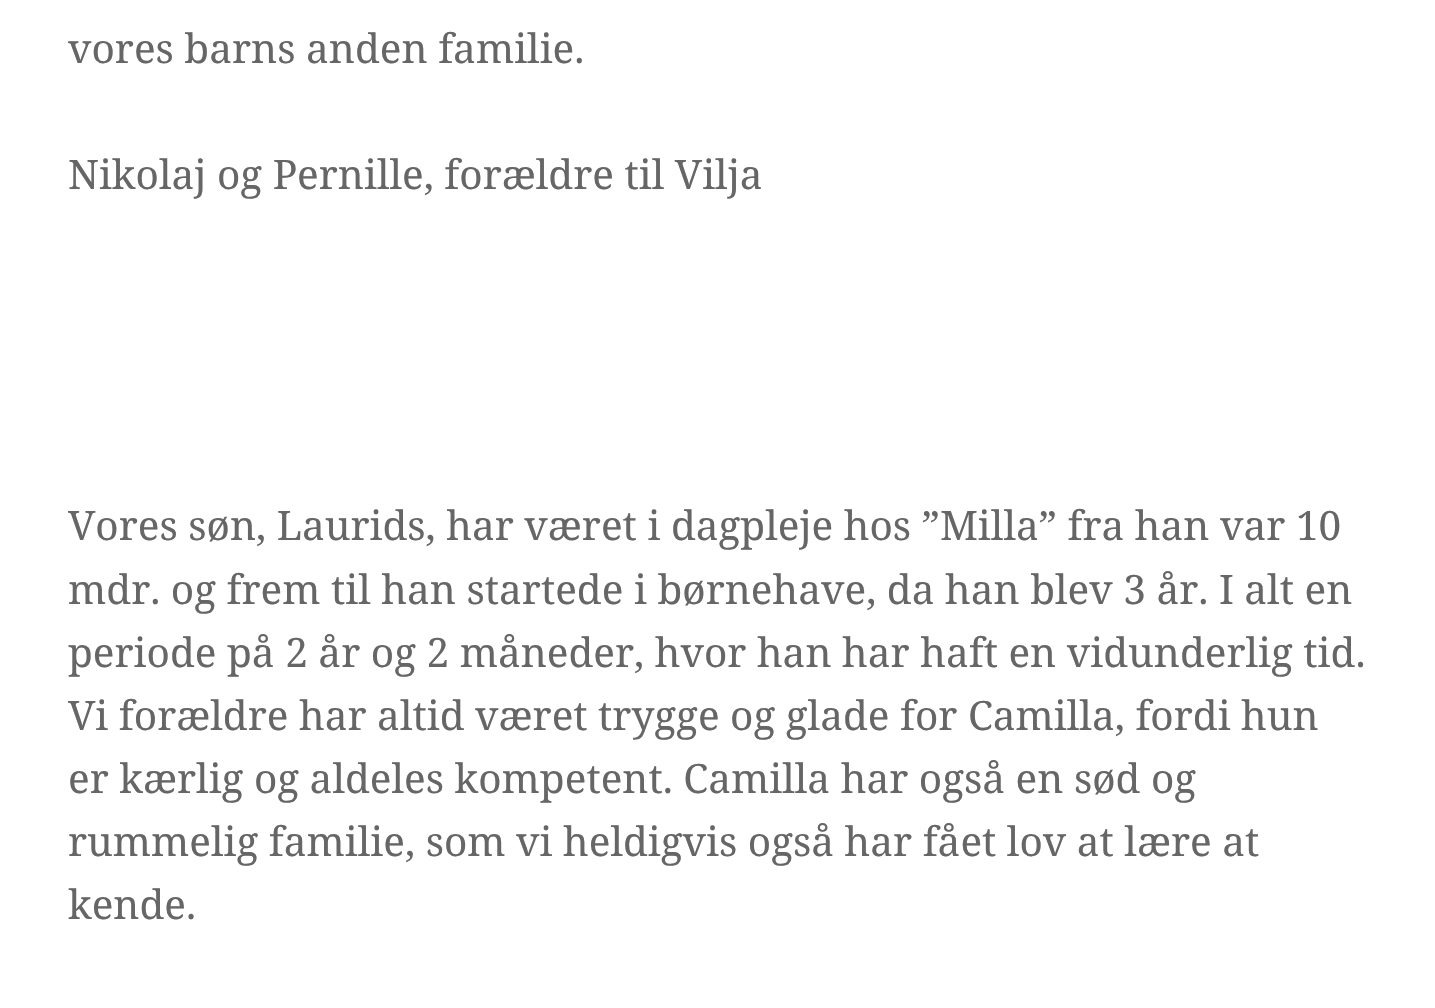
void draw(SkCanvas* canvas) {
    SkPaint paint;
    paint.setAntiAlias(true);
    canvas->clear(0xFFFFFFFF);
    SkFont font1(fontMgr->matchFamilyStyle("Noto Serif", SkFontStyle::Normal()), 40.5f);
    font1.setSubpixel(true);
    paint.setColor(0xFF666666);
    canvas->drawString("vores barns anden familie.", 68, 63, font1, paint);
    canvas->drawString("Nikolaj og Pernille, forældre til Vilja", 68, 189, font1, paint);
    canvas->drawString("Vores søn, Laurids, har været i dagpleje hos ”Milla” fra han var 10", 68, 540, font1, paint);
    canvas->drawString("mdr. og frem til han startede i børnehave, da han blev 3 år. I alt en", 68, 604, font1, paint);
    canvas->drawString("periode på 2 år og 2 måneder, hvor han har haft en vidunderlig tid.", 68, 667, font1, paint);
    canvas->drawString("Vi forældre har altid været trygge og glade for Camilla, fordi hun", 68, 730, font1, paint);
    canvas->drawString("er kærlig og aldeles kompetent. Camilla har også en sød og", 68, 793, font1, paint);
    canvas->drawString("rummelig familie, som vi heldigvis også har fået lov at lære at", 68, 856, font1, paint);
    canvas->drawString("kende.", 68, 919, font1, paint);
}
